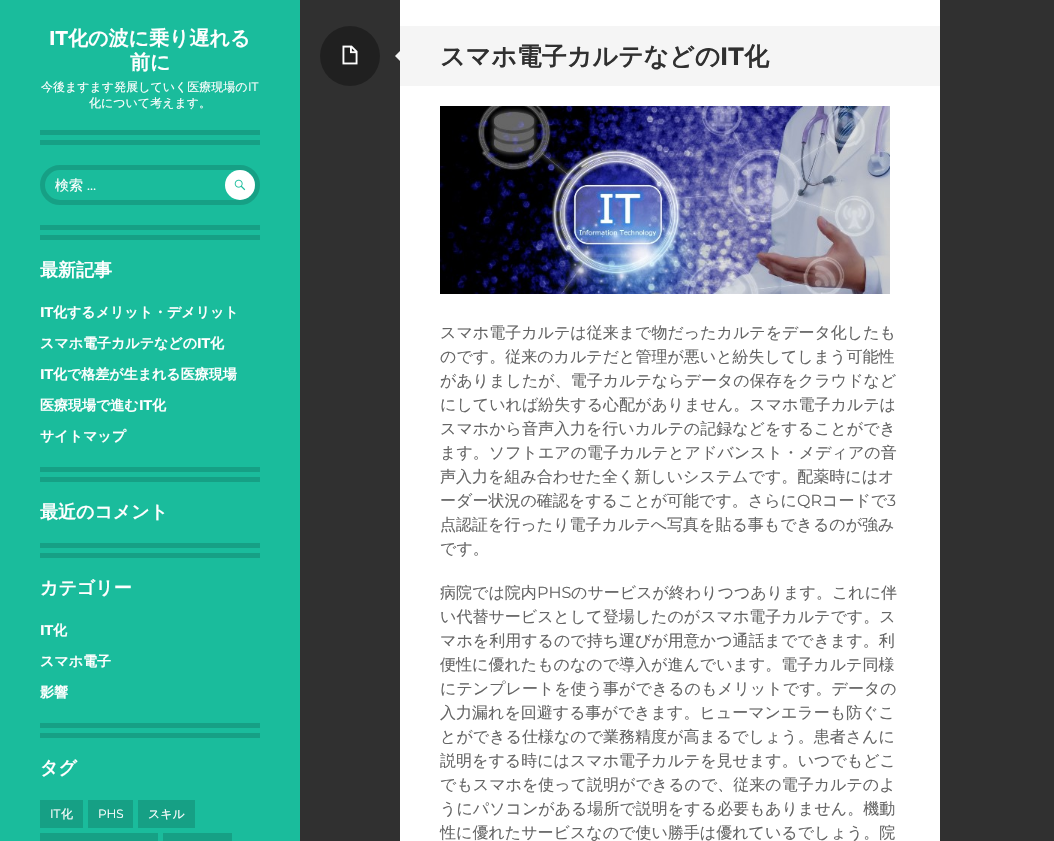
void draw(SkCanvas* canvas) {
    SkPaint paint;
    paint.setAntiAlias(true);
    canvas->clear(0xFF303030);
    paint.setColor(0xFF1ABC9C);
    canvas->drawRect(SkRect::MakeXYWH(0, 0, 300, 841), paint);
    paint.setColor(0xFF16A085);
    canvas->drawRect(SkRect::MakeXYWH(40, 130, 220, 5), paint);
    canvas->drawRect(SkRect::MakeXYWH(40, 140, 220, 5), paint);
    SkFont font1(fontMgr->matchFamilyStyle("Montserrat", SkFontStyle::Bold()), 20);
    font1.setSubpixel(true);
    paint.setColor(0xFFFFFFFF);
    canvas->drawString("IT", 49, 45, font1, paint);
    SkFont font2(fontMgr->matchFamilyStyle("WenQuanYi Zen Hei", SkFontStyle::Bold()), 20);
    font2.setSubpixel(true);
    canvas->drawString("化の波に乗り遅れる", 68, 45, font2, paint);
    canvas->drawString("前に", 130, 69, font2, paint);
    SkFont font3(fontMgr->matchFamilyStyle("WenQuanYi Zen Hei", SkFontStyle(500, SkFontStyle::kNormal_Width, SkFontStyle::kUpright_Slant)), 12);
    font3.setSubpixel(true);
    canvas->drawString("今後ますます発展していく医療現場の", 41, 91, font3, paint);
    SkFont font4(fontMgr->matchFamilyStyle("Montserrat", SkFontStyle::Normal()), 12);
    font4.setSubpixel(true);
    canvas->drawString("IT", 248, 91, font4, paint);
    canvas->drawString("化について考えます。", 89, 107, font3, paint);
    paint.setColor(0xFF16A085);
    canvas->drawRect(SkRect::MakeXYWH(40, 225, 220, 5), paint);
    canvas->drawRect(SkRect::MakeXYWH(40, 235, 220, 5), paint);
    paint.setStyle(SkPaint::kStroke_Style);
    paint.setStrokeWidth(5);
    canvas->drawRoundRect(SkRect::MakeXYWH(42.5f, 167.5f, 215, 35), 17.5f, 17.5f, paint);
    SkFont font5(fontMgr->matchFamilyStyle("WenQuanYi Zen Hei", SkFontStyle(500, SkFontStyle::kNormal_Width, SkFontStyle::kUpright_Slant)), 14);
    font5.setSubpixel(true);
    paint.setStyle(SkPaint::kFill_Style);
    paint.setColor(0xFFFFFFFF);
    canvas->drawString("検索", 55, 190, font5, paint);
    SkFont font6(fontMgr->matchFamilyStyle("Montserrat", SkFontStyle::Normal()), 14);
    font6.setSubpixel(true);
    canvas->drawString("…", 87, 190, font6, paint);
    canvas->drawCircle(240, 185, 15, paint);
    canvas->drawImageRect(SkImages::DeferredFromEncodedData(SkData::MakeFromFileName("img1.png")), SkRect::MakeXYWH(234, 179, 12, 12), SkSamplingOptions());
    paint.setColor(0xFF16A085);
    canvas->drawRect(SkRect::MakeXYWH(40, 467, 220, 5), paint);
    canvas->drawRect(SkRect::MakeXYWH(40, 477, 220, 5), paint);
    SkFont font7(fontMgr->matchFamilyStyle("WenQuanYi Zen Hei", SkFontStyle::Bold()), 18);
    font7.setSubpixel(true);
    paint.setColor(0xFFFFFFFF);
    canvas->drawString("最新記事", 40, 276, font7, paint);
    SkFont font8(fontMgr->matchFamilyStyle("Montserrat", SkFontStyle::Bold()), 14);
    font8.setSubpixel(true);
    canvas->drawString("IT", 40, 317, font8, paint);
    SkFont font9(fontMgr->matchFamilyStyle("WenQuanYi Zen Hei", SkFontStyle::Bold()), 14);
    font9.setSubpixel(true);
    canvas->drawString("化するメリット・デメリット", 53, 317, font9, paint);
    canvas->drawString("スマホ電子カルテなどの", 40, 348, font9, paint);
    canvas->drawString("IT", 197, 348, font8, paint);
    canvas->drawString("化", 210, 348, font9, paint);
    canvas->drawString("IT", 40, 379, font8, paint);
    canvas->drawString("化で格差が生まれる医療現場", 53, 379, font9, paint);
    canvas->drawString("医療現場で進む", 40, 410, font9, paint);
    canvas->drawString("IT", 139, 410, font8, paint);
    canvas->drawString("化", 152, 410, font9, paint);
    canvas->drawString("サイトマップ", 40, 441, font9, paint);
    paint.setColor(0xFF16A085);
    canvas->drawRect(SkRect::MakeXYWH(40, 543, 220, 5), paint);
    canvas->drawRect(SkRect::MakeXYWH(40, 553, 220, 5), paint);
    paint.setColor(0xFFFFFFFF);
    canvas->drawString("最近のコメント", 40, 518, font7, paint);
    paint.setColor(0xFF16A085);
    canvas->drawRect(SkRect::MakeXYWH(40, 723, 220, 5), paint);
    canvas->drawRect(SkRect::MakeXYWH(40, 733, 220, 5), paint);
    paint.setColor(0xFFFFFFFF);
    canvas->drawString("カテゴリー", 40, 594, font7, paint);
    canvas->drawString("IT", 40, 635, font8, paint);
    canvas->drawString("化", 53, 635, font9, paint);
    canvas->drawString("スマホ電子", 40, 666, font9, paint);
    canvas->drawString("影響", 40, 697, font9, paint);
    canvas->drawString("タグ", 40, 774, font7, paint);
    paint.setColor(0xFF16A085);
    canvas->drawRect(SkRect::MakeXYWH(40, 800, 43, 28), paint);
    paint.setColor(0xFFFFFFFF);
    canvas->drawString("IT", 50, 818, font4, paint);
    canvas->drawString("化", 61, 818, font3, paint);
    paint.setColor(0xFF16A085);
    canvas->drawRect(SkRect::MakeXYWH(88, 800, 45, 28), paint);
    paint.setColor(0xFFFFFFFF);
    canvas->drawString("PHS", 98, 818, font4, paint);
    paint.setColor(0xFF16A085);
    canvas->drawRect(SkRect::MakeXYWH(138, 800, 57, 28), paint);
    paint.setColor(0xFFFFFFFF);
    canvas->drawString("スキル", 148, 818, font3, paint);
    paint.setColor(0xFF16A085);
    canvas->drawRect(SkRect::MakeXYWH(40, 833, 118, 8), paint);
    canvas->drawRect(SkRect::MakeXYWH(163, 833, 69, 8), paint);
    paint.setColor(0xFFFFFFFF);
    canvas->drawRect(SkRect::MakeXYWH(400, 0, 540, 841), paint);
    paint.setColor(0xFF202020);
    canvas->drawCircle(350, 56, 30, paint);
    canvas->drawImageRect(SkImages::DeferredFromEncodedData(SkData::MakeFromFileName("img2.png")), SkRect::MakeXYWH(342, 45, 16, 20), SkSamplingOptions());
    paint.setColor(0xFFF5F5F5);
    canvas->drawRect(SkRect::MakeXYWH(400, 26, 540, 60), paint);
    canvas->drawPath(SkPathBuilder().moveTo(400, 51).lineTo(400, 61).lineTo(395, 56).close().detach(), paint);
    SkFont font10(fontMgr->matchFamilyStyle("WenQuanYi Zen Hei", SkFontStyle::Bold()), 25);
    font10.setSubpixel(true);
    paint.setColor(0xFF303030);
    canvas->drawString("スマホ電子カルテなどの", 440, 65, font10, paint);
    SkFont font11(fontMgr->matchFamilyStyle("Montserrat", SkFontStyle::Bold()), 25);
    font11.setSubpixel(true);
    canvas->drawString("IT", 720, 65, font11, paint);
    canvas->drawString("化", 744, 65, font10, paint);
    canvas->drawImageRect(SkImages::DeferredFromEncodedData(SkData::MakeFromFileName("img3.png")), SkRect::MakeXYWH(440, 106, 450, 188), SkSamplingOptions());
    SkFont font12(fontMgr->matchFamilyStyle("WenQuanYi Zen Hei", SkFontStyle(500, SkFontStyle::kNormal_Width, SkFontStyle::kUpright_Slant)), 16);
    font12.setSubpixel(true);
    paint.setColor(0xFF656565);
    canvas->drawString("スマホ電子カルテは従来まで物だったカルテをデータ化したも", 440, 338, font12, paint);
    canvas->drawString("のです。従来のカルテだと管理が悪いと紛失してしまう可能性", 440, 362, font12, paint);
    canvas->drawString("がありましたが、電子カルテならデータの保存をクラウドなど", 440, 386, font12, paint);
    canvas->drawString("にしていれば紛失する心配がありません。スマホ電子カルテは", 440, 410, font12, paint);
    canvas->drawString("スマホから音声入力を行いカルテの記録などをすることができ", 440, 434, font12, paint);
    canvas->drawString("ます。ソフトエアの電子カルテとアドバンスト・メディアの音", 440, 458, font12, paint);
    canvas->drawString("声入力を組み合わせた全く新しいシステムです。配薬時にはオ", 440, 482, font12, paint);
    canvas->drawString("ーダー状況の確認をすることが可能です。さらに", 440, 506, font12, paint);
    SkFont font13(fontMgr->matchFamilyStyle("Montserrat", SkFontStyle::Normal()), 16);
    font13.setSubpixel(true);
    canvas->drawString("QR", 797, 506, font13, paint);
    canvas->drawString("コードで", 822, 506, font12, paint);
    canvas->drawString("3", 887, 506, font13, paint);
    canvas->drawString("点認証を行ったり電子カルテへ写真を貼る事もできるのが強み", 440, 530, font12, paint);
    canvas->drawString("です。", 440, 554, font12, paint);
    canvas->drawString("病院では院内", 440, 598, font12, paint);
    canvas->drawString("PHS", 537, 598, font13, paint);
    canvas->drawString("のサービスが終わりつつあります。これに伴", 571, 598, font12, paint);
    canvas->drawString("い代替サービスとして登場したのがスマホ電子カルテです。ス", 440, 622, font12, paint);
    canvas->drawString("マホを利用するので持ち運びが用意かつ通話までできます。利", 440, 646, font12, paint);
    canvas->drawString("便性に優れたものなので導入が進んでいます。電子カルテ同様", 440, 670, font12, paint);
    canvas->drawString("にテンプレートを使う事ができるのもメリットです。データの", 440, 694, font12, paint);
    canvas->drawString("入力漏れを回避する事ができます。ヒューマンエラーも防ぐこ", 440, 718, font12, paint);
    canvas->drawString("とができる仕様なので業務精度が高まるでしょう。患者さんに", 440, 742, font12, paint);
    canvas->drawString("説明をする時にはスマホ電子カルテを見せます。いつでもどこ", 440, 766, font12, paint);
    canvas->drawString("でもスマホを使って説明ができるので、従来の電子カルテのよ", 440, 790, font12, paint);
    canvas->drawString("うにパソコンがある場所で説明をする必要もありません。機動", 440, 814, font12, paint);
    canvas->drawString("性に優れたサービスなので使い勝手は優れているでしょう。院", 440, 838, font12, paint);
}
